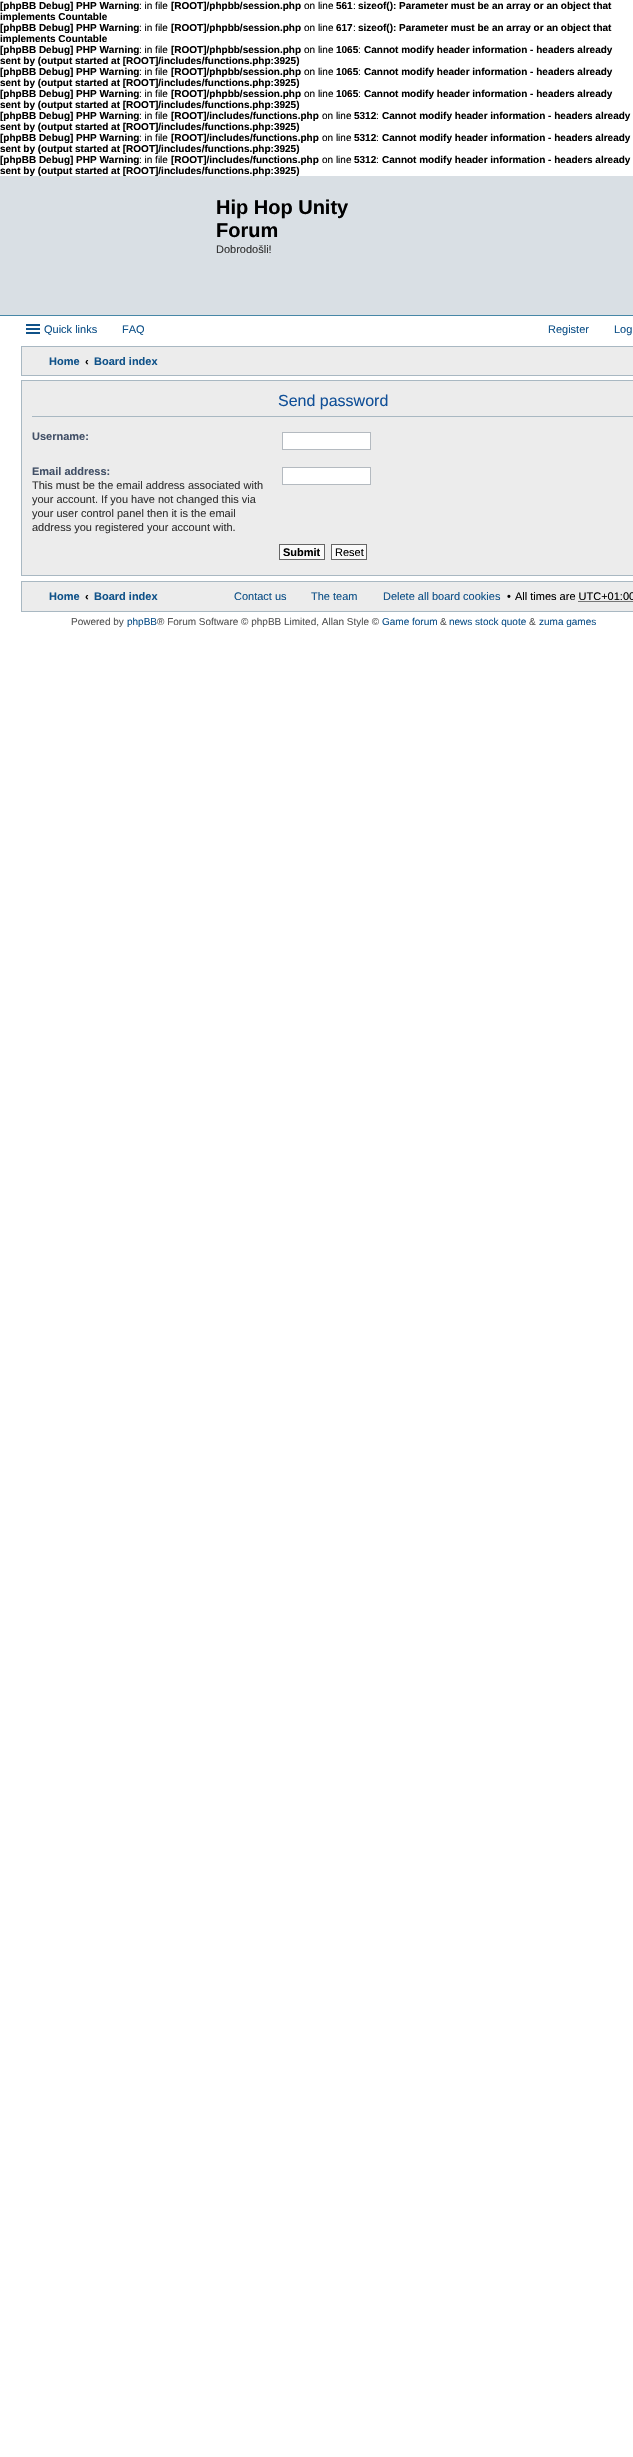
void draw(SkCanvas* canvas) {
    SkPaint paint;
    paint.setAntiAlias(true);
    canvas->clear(0xFFFFFFFF);
    SkFont font1(fontMgr->matchFamilyStyle("Liberation Sans", SkFontStyle::Bold()), 10);
    font1.setSubpixel(true);
    paint.setColor(0xFF000000);
    canvas->drawString("[phpBB Debug] PHP Warning", 0, 9, font1, paint);
    SkFont font2(fontMgr->matchFamilyStyle("Liberation Sans", SkFontStyle::Normal()), 10);
    font2.setSubpixel(true);
    canvas->drawString(": in file", 139, 9, font2, paint);
    canvas->drawString("[ROOT]/phpbb/session.php", 171, 9, font1, paint);
    canvas->drawString("on line", 304, 9, font2, paint);
    canvas->drawString("561", 336, 9, font1, paint);
    canvas->drawString(":", 353, 9, font2, paint);
    canvas->drawString("sizeof(): Parameter must be an array or an object that", 358, 9, font1, paint);
    canvas->drawString("implements Countable", 0, 20, font1, paint);
    canvas->drawString("[phpBB Debug] PHP Warning", 0, 31, font1, paint);
    canvas->drawString(": in file", 139, 31, font2, paint);
    canvas->drawString("[ROOT]/phpbb/session.php", 171, 31, font1, paint);
    canvas->drawString("on line", 304, 31, font2, paint);
    canvas->drawString("617", 336, 31, font1, paint);
    canvas->drawString(":", 353, 31, font2, paint);
    canvas->drawString("sizeof(): Parameter must be an array or an object that", 358, 31, font1, paint);
    canvas->drawString("implements Countable", 0, 42, font1, paint);
    canvas->drawString("[phpBB Debug] PHP Warning", 0, 53, font1, paint);
    canvas->drawString(": in file", 139, 53, font2, paint);
    canvas->drawString("[ROOT]/phpbb/session.php", 171, 53, font1, paint);
    canvas->drawString("on line", 304, 53, font2, paint);
    canvas->drawString("1065", 336, 53, font1, paint);
    canvas->drawString(":", 358, 53, font2, paint);
    canvas->drawString("Cannot modify header information - headers already", 364, 53, font1, paint);
    canvas->drawString("sent by (output started at [ROOT]/includes/functions.php:3925)", 0, 64, font1, paint);
    canvas->drawString("[phpBB Debug] PHP Warning", 0, 75, font1, paint);
    canvas->drawString(": in file", 139, 75, font2, paint);
    canvas->drawString("[ROOT]/phpbb/session.php", 171, 75, font1, paint);
    canvas->drawString("on line", 304, 75, font2, paint);
    canvas->drawString("1065", 336, 75, font1, paint);
    canvas->drawString(":", 358, 75, font2, paint);
    canvas->drawString("Cannot modify header information - headers already", 364, 75, font1, paint);
    canvas->drawString("sent by (output started at [ROOT]/includes/functions.php:3925)", 0, 86, font1, paint);
    canvas->drawString("[phpBB Debug] PHP Warning", 0, 97, font1, paint);
    canvas->drawString(": in file", 139, 97, font2, paint);
    canvas->drawString("[ROOT]/phpbb/session.php", 171, 97, font1, paint);
    canvas->drawString("on line", 304, 97, font2, paint);
    canvas->drawString("1065", 336, 97, font1, paint);
    canvas->drawString(":", 358, 97, font2, paint);
    canvas->drawString("Cannot modify header information - headers already", 364, 97, font1, paint);
    canvas->drawString("sent by (output started at [ROOT]/includes/functions.php:3925)", 0, 108, font1, paint);
    canvas->drawString("[phpBB Debug] PHP Warning", 0, 119, font1, paint);
    canvas->drawString(": in file", 139, 119, font2, paint);
    canvas->drawString("[ROOT]/includes/functions.php", 171, 119, font1, paint);
    canvas->drawString("on line", 322, 119, font2, paint);
    canvas->drawString("5312", 354, 119, font1, paint);
    canvas->drawString(":", 376, 119, font2, paint);
    canvas->drawString("Cannot modify header information - headers already", 382, 119, font1, paint);
    canvas->drawString("sent by (output started at [ROOT]/includes/functions.php:3925)", 0, 130, font1, paint);
    canvas->drawString("[phpBB Debug] PHP Warning", 0, 141, font1, paint);
    canvas->drawString(": in file", 139, 141, font2, paint);
    canvas->drawString("[ROOT]/includes/functions.php", 171, 141, font1, paint);
    canvas->drawString("on line", 322, 141, font2, paint);
    canvas->drawString("5312", 354, 141, font1, paint);
    canvas->drawString(":", 376, 141, font2, paint);
    canvas->drawString("Cannot modify header information - headers already", 382, 141, font1, paint);
    canvas->drawString("sent by (output started at [ROOT]/includes/functions.php:3925)", 0, 152, font1, paint);
    canvas->drawString("[phpBB Debug] PHP Warning", 0, 163, font1, paint);
    canvas->drawString(": in file", 139, 163, font2, paint);
    canvas->drawString("[ROOT]/includes/functions.php", 171, 163, font1, paint);
    canvas->drawString("on line", 322, 163, font2, paint);
    canvas->drawString("5312", 354, 163, font1, paint);
    canvas->drawString(":", 376, 163, font2, paint);
    canvas->drawString("Cannot modify header information - headers already", 382, 163, font1, paint);
    paint.setColor(0xFFD9DFE4);
    canvas->drawRect(SkRect::MakeXYWH(0, 176, 633, 139), paint);
    paint.setColor(0xFF000000);
    canvas->drawString("sent by (output started at [ROOT]/includes/functions.php:3925)", 0, 174, font1, paint);
    paint.setColor(0xFF4787A7);
    canvas->drawRect(SkRect::MakeXYWH(0, 315, 633, 1), paint);
    SkFont font3(fontMgr->matchFamilyStyle("Liberation Sans", SkFontStyle::Bold()), 20);
    font3.setSubpixel(true);
    paint.setColor(0xFF000000);
    canvas->drawString("Hip Hop Unity", 216, 214, font3, paint);
    canvas->drawString("Forum", 216, 237, font3, paint);
    SkFont font4(fontMgr->matchFamilyStyle("Liberation Sans", SkFontStyle::Normal()), 11);
    font4.setSubpixel(true);
    paint.setColor(0xFF333333);
    canvas->drawString("Dobrodošli!", 216, 253, font4, paint);
    paint.setColor(0xFF105289);
    canvas->drawRect(SkRect::MakeXYWH(26, 324, 14, 2), paint);
    canvas->drawRect(SkRect::MakeXYWH(26, 328, 14, 2), paint);
    canvas->drawRect(SkRect::MakeXYWH(26, 332, 14, 2), paint);
    canvas->drawString("Quick links", 44, 333, font4, paint);
    canvas->drawString("FAQ", 122, 333, font4, paint);
    canvas->drawString("Register", 548, 333, font4, paint);
    canvas->drawString("Log", 614, 333, font4, paint);
    paint.setColor(0xFFECECEC);
    canvas->drawRect(SkRect::MakeXYWH(21.5f, 346.5f, 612, 29), paint);
    paint.setStyle(SkPaint::kStroke_Style);
    paint.setStrokeWidth(1);
    paint.setColor(0xFFA9B8C2);
    canvas->drawRect(SkRect::MakeXYWH(21.5f, 346.5f, 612, 29), paint);
    SkFont font5(fontMgr->matchFamilyStyle("Liberation Sans", SkFontStyle::Bold()), 11);
    font5.setSubpixel(true);
    paint.setStyle(SkPaint::kFill_Style);
    paint.setColor(0xFF105289);
    canvas->drawString("Home", 49, 365, font5, paint);
    paint.setColor(0xFF000000);
    canvas->drawString("‹", 85, 365, font5, paint);
    paint.setColor(0xFF105289);
    canvas->drawString("Board index", 94, 365, font5, paint);
    paint.setColor(0xFFECECEC);
    canvas->drawRect(SkRect::MakeXYWH(21.5f, 380.5f, 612, 195), paint);
    paint.setStyle(SkPaint::kStroke_Style);
    paint.setColor(0xFFA9B8C2);
    canvas->drawRect(SkRect::MakeXYWH(21.5f, 380.5f, 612, 195), paint);
    paint.setStyle(SkPaint::kFill_Style);
    canvas->drawRect(SkRect::MakeXYWH(32, 416, 601, 1), paint);
    SkFont font6(fontMgr->matchFamilyStyle("Liberation Sans", SkFontStyle::Normal()), 16);
    font6.setSubpixel(true);
    paint.setColor(0xFF115098);
    canvas->drawString("Send password", 278, 406, font6, paint);
    paint.setColor(0xFF425067);
    canvas->drawString("Username:", 32, 440, font5, paint);
    paint.setColor(0xFFFFFFFF);
    canvas->drawRect(SkRect::MakeXYWH(282.5f, 432.5f, 88, 17), paint);
    paint.setStyle(SkPaint::kStroke_Style);
    paint.setColor(0xFFB4BAC0);
    canvas->drawRect(SkRect::MakeXYWH(282.5f, 432.5f, 88, 17), paint);
    paint.setStyle(SkPaint::kFill_Style);
    paint.setColor(0xFF425067);
    canvas->drawString("Email address:", 32, 475, font5, paint);
    paint.setColor(0xFF333333);
    canvas->drawString("This must be the email address associated with", 32, 489, font4, paint);
    canvas->drawString("your account. If you have not changed this via", 32, 503, font4, paint);
    canvas->drawString("your user control panel then it is the email", 32, 517, font4, paint);
    canvas->drawString("address you registered your account with.", 32, 531, font4, paint);
    paint.setColor(0xFFFFFFFF);
    canvas->drawRect(SkRect::MakeXYWH(282.5f, 467.5f, 88, 17), paint);
    paint.setStyle(SkPaint::kStroke_Style);
    paint.setColor(0xFFB4BAC0);
    canvas->drawRect(SkRect::MakeXYWH(282.5f, 467.5f, 88, 17), paint);
    paint.setStyle(SkPaint::kFill_Style);
    paint.setColor(0xFFFAFAFA);
    canvas->drawRect(SkRect::MakeXYWH(279.5f, 544.5f, 45, 15), paint);
    paint.setStyle(SkPaint::kStroke_Style);
    paint.setColor(0xFF666666);
    canvas->drawRect(SkRect::MakeXYWH(279.5f, 544.5f, 45, 15), paint);
    paint.setStyle(SkPaint::kFill_Style);
    paint.setColor(0xFF000000);
    canvas->drawString("Submit", 283, 556, font5, paint);
    paint.setColor(0xFFFAFAFA);
    canvas->drawRect(SkRect::MakeXYWH(331.5f, 544.5f, 35, 15), paint);
    paint.setStyle(SkPaint::kStroke_Style);
    paint.setColor(0xFF666666);
    canvas->drawRect(SkRect::MakeXYWH(331.5f, 544.5f, 35, 15), paint);
    paint.setStyle(SkPaint::kFill_Style);
    paint.setColor(0xFF000000);
    canvas->drawString("Reset", 335, 556, font4, paint);
    paint.setColor(0xFFECECEC);
    canvas->drawRect(SkRect::MakeXYWH(21.5f, 581.5f, 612, 30), paint);
    paint.setStyle(SkPaint::kStroke_Style);
    paint.setColor(0xFFA9B8C2);
    canvas->drawRect(SkRect::MakeXYWH(21.5f, 581.5f, 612, 30), paint);
    paint.setStyle(SkPaint::kFill_Style);
    paint.setColor(0xFF105289);
    canvas->drawString("Home", 49, 600, font5, paint);
    paint.setColor(0xFF000000);
    canvas->drawString("‹", 85, 600, font5, paint);
    paint.setColor(0xFF105289);
    canvas->drawString("Board index", 94, 600, font5, paint);
    canvas->drawString("Contact us", 234, 600, font4, paint);
    canvas->drawString("The team", 311, 600, font4, paint);
    canvas->drawString("Delete all board cookies", 383, 600, font4, paint);
    paint.setColor(0xFF000000);
    canvas->drawString("•", 507, 600, font4, paint);
    canvas->drawString("All times are UTC+01:00", 515, 600, font4, paint);
    paint.setStyle(SkPaint::kStroke_Style);
    paint.setPathEffect(SkDashPathEffect::Make({{1, 1}}, 0));
    canvas->drawPath(SkPathBuilder().moveTo(578.5f, 601.5f).lineTo(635, 601.5f).detach(), paint);
    paint.setPathEffect(nullptr);
    paint.setStyle(SkPaint::kFill_Style);
    paint.setColor(0xFF555555);
    canvas->drawString("Powered by", 71, 625, font2, paint);
    paint.setColor(0xFF105289);
    canvas->drawString("phpBB", 127, 625, font2, paint);
    paint.setColor(0xFF555555);
    canvas->drawString("® Forum Software © phpBB Limited, Allan Style ©", 157, 625, font2, paint);
    paint.setColor(0xFF105289);
    canvas->drawString("Game forum", 382, 625, font2, paint);
    paint.setColor(0xFF555555);
    canvas->drawString("&", 440, 625, font2, paint);
    paint.setColor(0xFF105289);
    canvas->drawString("news stock quote", 449, 625, font2, paint);
    paint.setColor(0xFF555555);
    canvas->drawString("&", 529, 625, font2, paint);
    paint.setColor(0xFF105289);
    canvas->drawString("zuma games", 539, 625, font2, paint);
}
